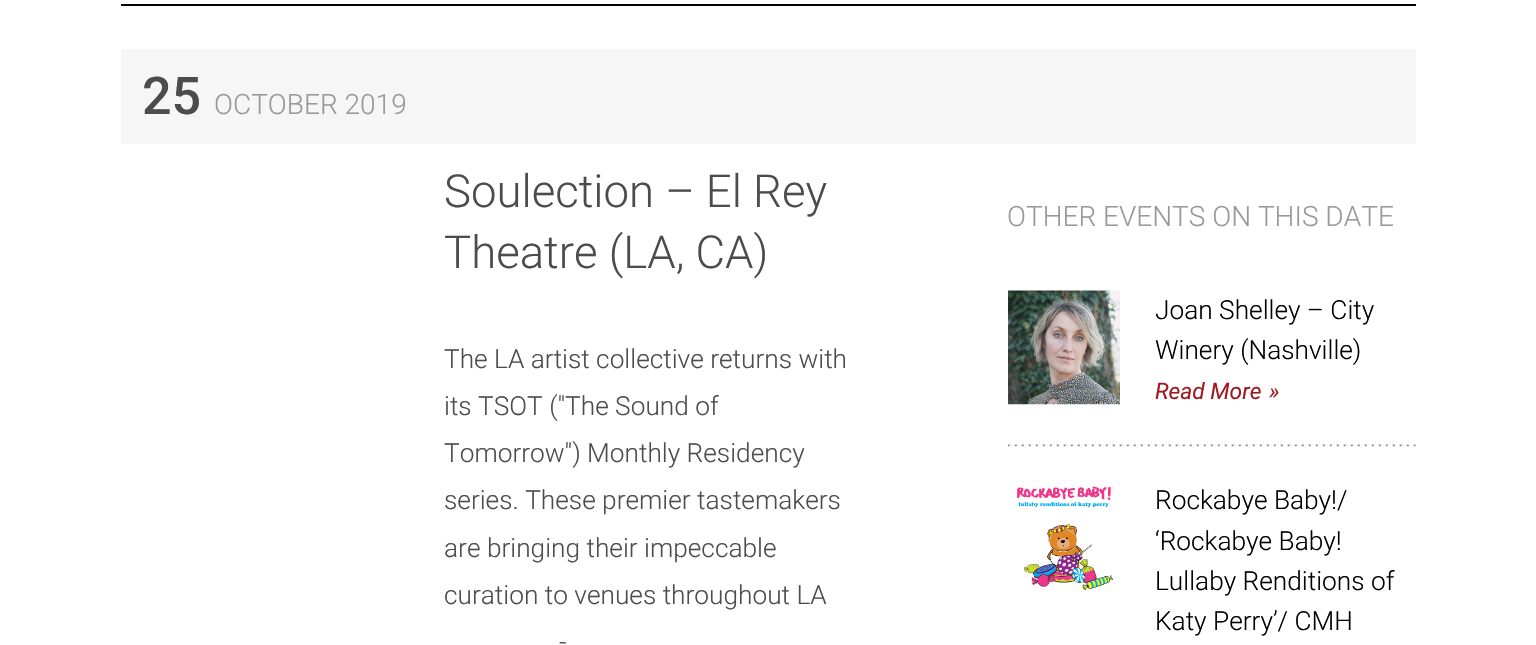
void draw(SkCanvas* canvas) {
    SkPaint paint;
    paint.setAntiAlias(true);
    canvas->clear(0xFFFFFFFF);
    paint.setColor(0xFF000000);
    canvas->drawRect(SkRect::MakeXYWH(121, 4, 1295, 2), paint);
    paint.setColor(0xFFF6F6F6);
    canvas->drawRect(SkRect::MakeXYWH(121, 49, 1295, 95), paint);
    SkFont font1(fontMgr->matchFamilyStyle("Roboto", SkFontStyle(500, SkFontStyle::kNormal_Width, SkFontStyle::kUpright_Slant)), 52);
    font1.setSubpixel(true);
    paint.setColor(0xFF4C4C4C);
    canvas->drawString("25", 142, 114, font1, paint);
    SkFont font2(fontMgr->matchFamilyStyle("Roboto", SkFontStyle(300, SkFontStyle::kNormal_Width, SkFontStyle::kUpright_Slant)), 28);
    font2.setSubpixel(true);
    paint.setColor(0xFF999999);
    canvas->drawString("OCTOBER 2019", 214, 114, font2, paint);
    SkFont font3(fontMgr->matchFamilyStyle("Roboto", SkFontStyle(300, SkFontStyle::kNormal_Width, SkFontStyle::kUpright_Slant)), 45.5f);
    font3.setSubpixel(true);
    paint.setColor(0xFF4C4C4C);
    canvas->drawString("Soulection – El Rey", 444, 207, font3, paint);
    canvas->drawString("Theatre (LA, CA)", 444, 268, font3, paint);
    SkFont font4(fontMgr->matchFamilyStyle("Roboto", SkFontStyle(300, SkFontStyle::kNormal_Width, SkFontStyle::kUpright_Slant)), 26.25f);
    font4.setSubpixel(true);
    canvas->drawString("The LA artist collective returns with", 444, 368, font4, paint);
    canvas->drawString("its TSOT (\"The Sound of", 444, 415, font4, paint);
    canvas->drawString("Tomorrow\") Monthly Residency", 444, 462, font4, paint);
    canvas->drawString("series. These premier tastemakers", 444, 509, font4, paint);
    canvas->drawString("are bringing their impeccable", 444, 557, font4, paint);
    canvas->drawString("curation to venues throughout LA", 444, 604, font4, paint);
    canvas->drawString("-", 559, 651, font4, paint);
    paint.setColor(0xFF999999);
    canvas->drawString("OTHER EVENTS ON THIS DATE", 1007, 226, font2, paint);
    canvas->drawImageRect(SkImages::DeferredFromEncodedData(SkData::MakeFromFileName("img1.png")), SkRect::MakeXYWH(1008, 444, 408, 3), SkSamplingOptions());
    canvas->drawImageRect(SkImages::DeferredFromEncodedData(SkData::MakeFromFileName("img2.png")), SkRect::MakeXYWH(1008, 290, 112, 115), SkSamplingOptions());
    paint.setColor(0xFF000000);
    canvas->drawString("Joan Shelley – City", 1155, 319, font4, paint);
    canvas->drawString("Winery (Nashville)", 1155, 359, font4, paint);
    SkFont font5(fontMgr->matchFamilyStyle("Roboto", SkFontStyle::Italic()), 22.75f);
    font5.setSubpixel(true);
    paint.setColor(0xFF9E1B21);
    canvas->drawString("Read More", 1155, 399, font5, paint);
    canvas->drawString("»", 1269, 399, font5, paint);
    canvas->drawImageRect(SkImages::DeferredFromEncodedData(SkData::MakeFromFileName("img3.png")), SkRect::MakeXYWH(1017, 486, 97, 104), SkSamplingOptions());
    paint.setColor(0xFF000000);
    canvas->drawString("Rockabye Baby!/", 1155, 509, font4, paint);
    canvas->drawString("‘Rockabye Baby!", 1155, 550, font4, paint);
    canvas->drawString("Lullaby Renditions of", 1155, 590, font4, paint);
    canvas->drawString("Katy Perry’/ CMH", 1155, 630, font4, paint);
}
